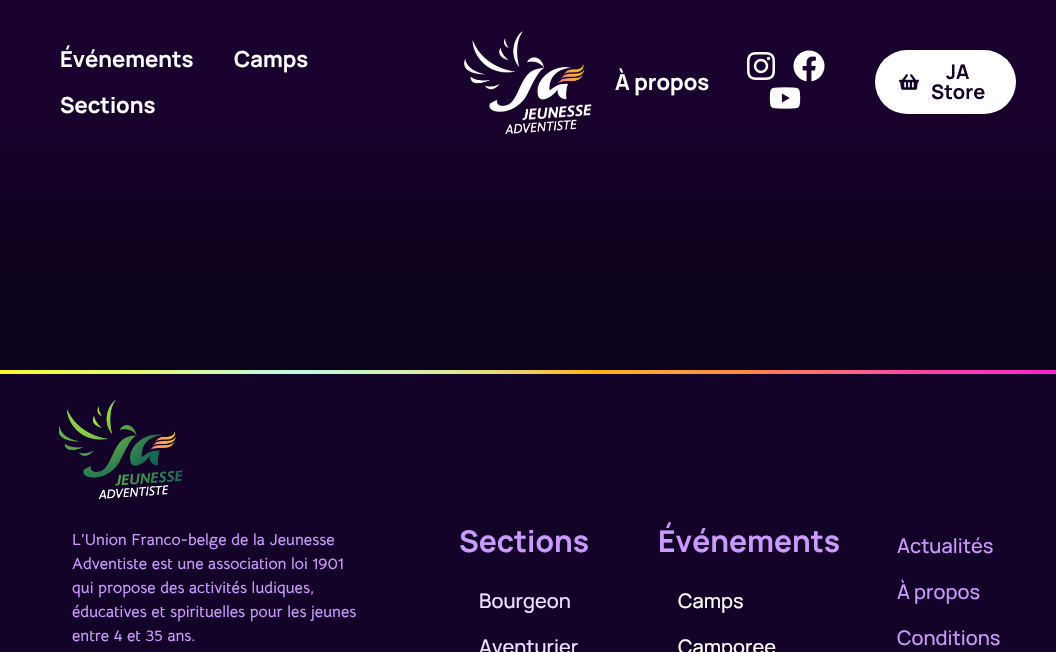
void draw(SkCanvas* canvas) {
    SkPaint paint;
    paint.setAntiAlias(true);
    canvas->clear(0xFF0C021B);
    {
        const SkColor colors[] = {0xFF160129, 0xFF0C021B};
        const float stops[] = {0.5f, 0.9f};
        const SkPoint ends[] = {{528, -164}, {528, 356}};
        paint.setShader(SkGradientShader::MakeLinear(ends, colors, stops, 2, SkTileMode::kClamp));
        paint.setAlpha(255);
    }
    canvas->drawRect(SkRect::MakeXYWH(0, 0, 1056, 267), paint);
    {
        const SkColor colors[] = {0xBD1A012E, 0xFF0C021B};
        const float stops[] = {0.5f, 0.9f};
        const SkPoint ends[] = {{528, -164}, {528, 356}};
        paint.setShader(SkGradientShader::MakeLinear(ends, colors, stops, 2, SkTileMode::kClamp));
        paint.setAlpha(255);
    }
    canvas->drawRect(SkRect::MakeXYWH(0, 0, 1056, 196), paint);
    SkFont font1(fontMgr->matchFamilyStyle("Manrope", SkFontStyle::Bold()), 22);
    font1.setSubpixel(true);
    paint.setShader(nullptr);
    paint.setColor(0xFFFFFFFF);
    canvas->drawString("Événements", 60, 67, font1, paint);
    canvas->drawString("Camps", 234, 67, font1, paint);
    canvas->drawString("Sections", 60, 113, font1, paint);
    canvas->drawImageRect(SkImages::DeferredFromEncodedData(SkData::MakeFromFileName("img1.png")), SkRect::MakeXYWH(464, 31, 128, 103), SkSamplingOptions());
    canvas->drawString("À propos", 615, 90, font1, paint);
    canvas->drawImageRect(SkImages::DeferredFromEncodedData(SkData::MakeFromFileName("img2.png")), SkRect::MakeXYWH(747, 52, 28, 28), SkSamplingOptions());
    canvas->drawImageRect(SkImages::DeferredFromEncodedData(SkData::MakeFromFileName("img3.png")), SkRect::MakeXYWH(793, 50, 32, 32), SkSamplingOptions());
    canvas->drawImageRect(SkImages::DeferredFromEncodedData(SkData::MakeFromFileName("img4.png")), SkRect::MakeXYWH(769, 87, 32, 22), SkSamplingOptions());
    canvas->drawRoundRect(SkRect::MakeXYWH(875, 50, 141, 64), 32, 32, paint);
    canvas->drawImageRect(SkImages::DeferredFromEncodedData(SkData::MakeFromFileName("img5.png")), SkRect::MakeXYWH(899, 74, 20, 16), SkSamplingOptions());
    SkFont font2(fontMgr->matchFamilyStyle("Manrope", SkFontStyle::Bold()), 20);
    font2.setSubpixel(true);
    paint.setColor(0xFF130329);
    canvas->drawString("JA", 946, 79, font2, paint);
    canvas->drawString("Store", 931, 99, font2, paint);
    canvas->drawImageRect(SkImages::DeferredFromEncodedData(SkData::MakeFromFileName("img6.png")), SkRect::MakeXYWH(0, 370, 1056, 4), SkSamplingOptions());
    canvas->drawRect(SkRect::MakeXYWH(0, 374, 1056, 278), paint);
    canvas->drawImageRect(SkImages::DeferredFromEncodedData(SkData::MakeFromFileName("img7.png")), SkRect::MakeXYWH(59, 400, 124, 100), SkSamplingOptions());
    SkFont font3(fontMgr->matchFamilyStyle("Bellota Text", SkFontStyle::Bold()), 16);
    font3.setSubpixel(true);
    paint.setColor(0xFFCC99FF);
    canvas->drawString("L’Union Franco-belge de la Jeunesse", 72, 545, font3, paint);
    canvas->drawString("Adventiste est une association loi 1901", 72, 569, font3, paint);
    canvas->drawString("qui propose des activités ludiques,", 72, 593, font3, paint);
    canvas->drawString("éducatives et spirituelles pour les jeunes", 72, 617, font3, paint);
    canvas->drawString("entre 4 et 35 ans.", 72, 641, font3, paint);
    SkFont font4(fontMgr->matchFamilyStyle("Manrope", SkFontStyle::Bold()), 30);
    font4.setSubpixel(true);
    canvas->drawString("Sections", 459, 552, font4, paint);
    SkFont font5(fontMgr->matchFamilyStyle("Manrope", SkFontStyle(500, SkFontStyle::kNormal_Width, SkFontStyle::kUpright_Slant)), 20);
    font5.setSubpixel(true);
    paint.setColor(0xFFEFDEFF);
    canvas->drawString("Bourgeon", 479, 608, font5, paint);
    canvas->drawString("Aventurier", 479, 654, font5, paint);
    paint.setColor(0xFFCC99FF);
    canvas->drawString("Événements", 658, 552, font4, paint);
    paint.setColor(0xFFFFFFFF);
    canvas->drawString("Camps", 678, 608, font5, paint);
    canvas->drawString("Camporee", 678, 654, font5, paint);
    paint.setColor(0xFFCC99FF);
    canvas->drawString("Actualités", 897, 553, font5, paint);
    canvas->drawString("À propos", 897, 599, font5, paint);
    canvas->drawString("Conditions", 897, 645, font5, paint);
}
